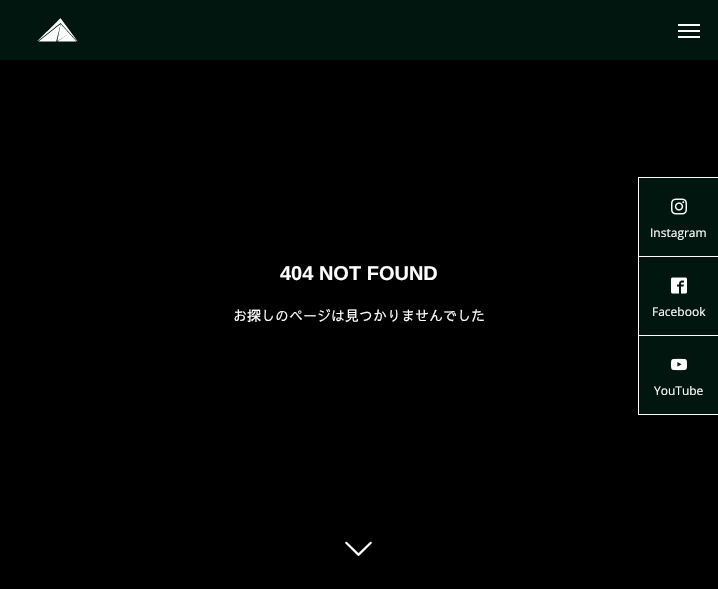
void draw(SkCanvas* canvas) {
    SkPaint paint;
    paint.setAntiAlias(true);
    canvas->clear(0xFF000000);
    paint.setColor(0xFF00160F);
    canvas->drawRect(SkRect::MakeXYWH(0, 0, 718, 60), paint);
    canvas->drawImageRect(SkImages::DeferredFromEncodedData(SkData::MakeFromFileName("img1.png")), SkRect::MakeXYWH(37, 18, 41, 24), SkSamplingOptions());
    paint.setColor(0xFFFFFFFF);
    canvas->drawRect(SkRect::MakeXYWH(678, 24, 22, 2), paint);
    canvas->drawRect(SkRect::MakeXYWH(678, 30, 22, 2), paint);
    canvas->drawRect(SkRect::MakeXYWH(678, 36, 22, 2), paint);
    SkFont font1(fontMgr->matchFamilyStyle("Liberation Sans", SkFontStyle::Bold()), 20);
    font1.setSubpixel(true);
    canvas->drawString("404 NOT FOUND", 280, 280, font1, paint);
    SkFont font2(fontMgr->matchFamilyStyle("Sawarabi Gothic", SkFontStyle::Normal()), 14);
    font2.setSubpixel(true);
    canvas->drawString("お探しのページは見つかりませんでした", 233, 321, font2, paint);
    canvas->drawImageRect(SkImages::DeferredFromEncodedData(SkData::MakeFromFileName("img2.png")), SkRect::MakeXYWH(345, 541, 27, 15), SkSamplingOptions());
    paint.setColor(0xFF00160F);
    canvas->drawRect(SkRect::MakeXYWH(639, 178, 79, 78), paint);
    paint.setColor(0xFFFFFFFF);
    canvas->drawRect(SkRect::MakeXYWH(638, 177, 80, 1), paint);
    canvas->drawRect(SkRect::MakeXYWH(638, 177, 1, 80), paint);
    canvas->drawImageRect(SkImages::DeferredFromEncodedData(SkData::MakeFromFileName("img3.png")), SkRect::MakeXYWH(671, 198, 16, 17), SkSamplingOptions());
    SkFont font3(fontMgr->matchFamilyStyle("Open Sans", SkFontStyle::Normal()), 12);
    font3.setSubpixel(true);
    canvas->drawString("Instagram", 650, 237, font3, paint);
    paint.setColor(0xFF00160F);
    canvas->drawRect(SkRect::MakeXYWH(639, 257, 79, 78), paint);
    paint.setColor(0xFFFFFFFF);
    canvas->drawRect(SkRect::MakeXYWH(638, 256, 80, 1), paint);
    canvas->drawRect(SkRect::MakeXYWH(638, 256, 1, 80), paint);
    canvas->drawImageRect(SkImages::DeferredFromEncodedData(SkData::MakeFromFileName("img4.png")), SkRect::MakeXYWH(671, 277, 16, 17), SkSamplingOptions());
    canvas->drawString("Facebook", 652, 316, font3, paint);
    paint.setColor(0xFF00160F);
    canvas->drawRect(SkRect::MakeXYWH(639, 336, 79, 78), paint);
    paint.setColor(0xFFFFFFFF);
    canvas->drawRect(SkRect::MakeXYWH(638, 335, 80, 1), paint);
    canvas->drawRect(SkRect::MakeXYWH(638, 414, 80, 1), paint);
    canvas->drawRect(SkRect::MakeXYWH(638, 335, 1, 80), paint);
    canvas->drawImageRect(SkImages::DeferredFromEncodedData(SkData::MakeFromFileName("img5.png")), SkRect::MakeXYWH(671, 358, 16, 13), SkSamplingOptions());
    canvas->drawString("YouTube", 654, 395, font3, paint);
}
